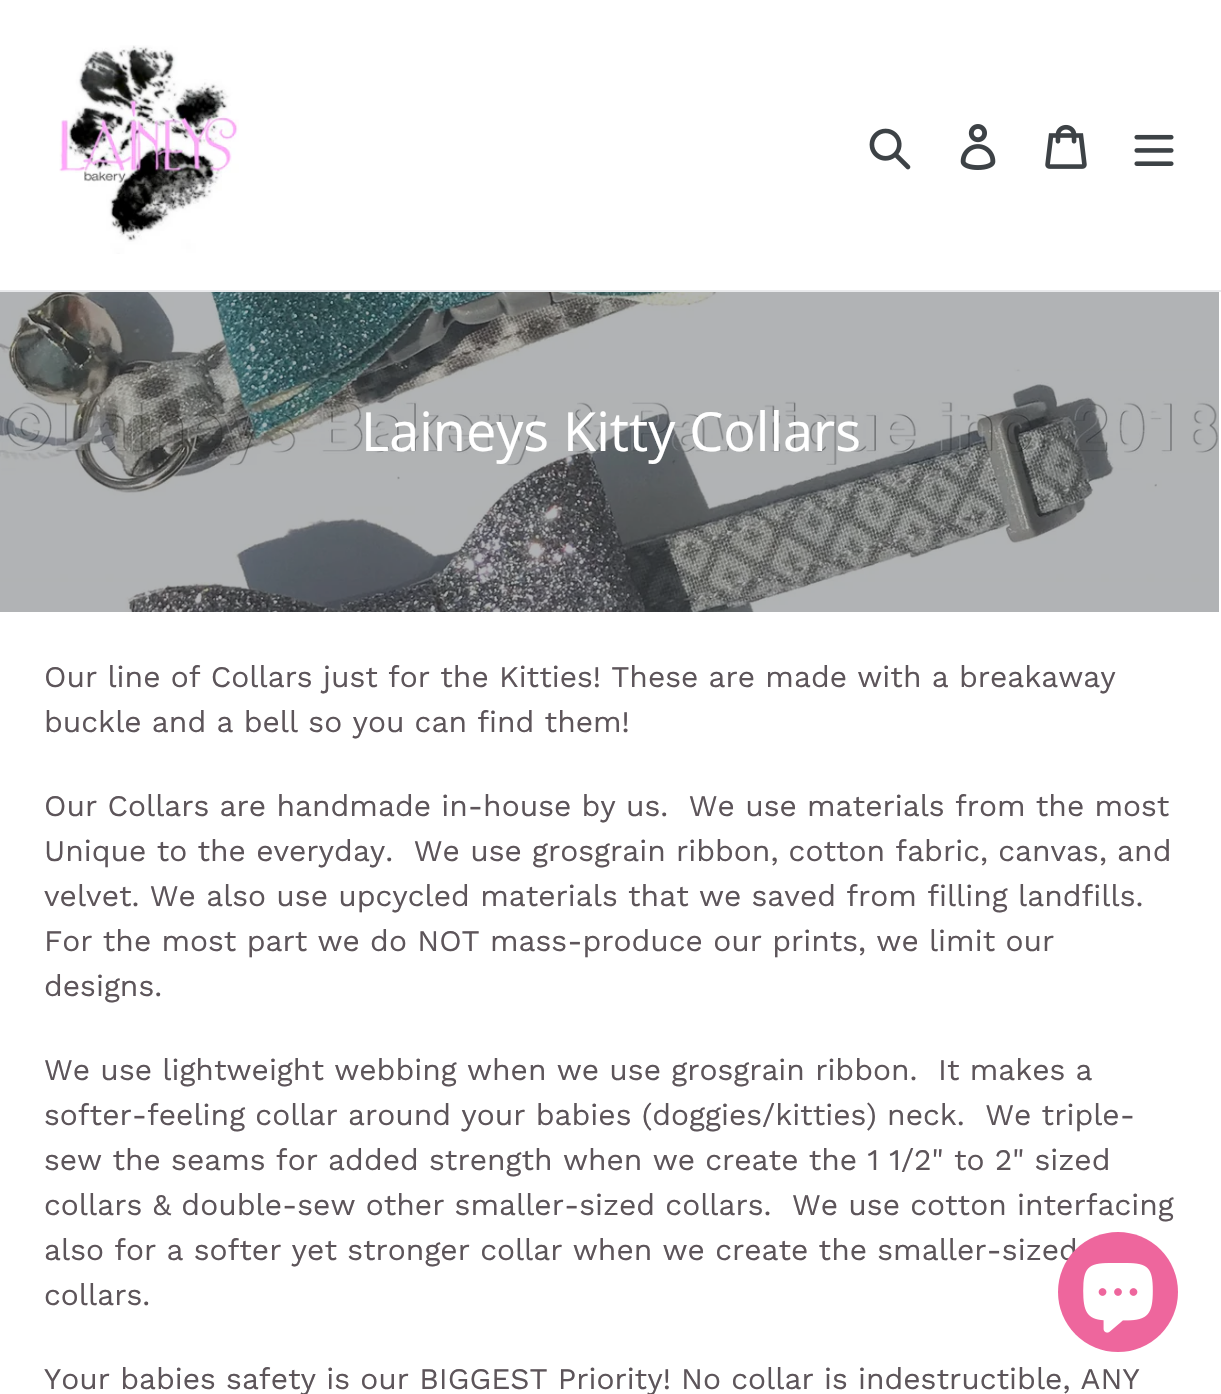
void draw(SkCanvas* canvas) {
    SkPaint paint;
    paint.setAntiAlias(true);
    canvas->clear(0xFFFFFFFF);
    paint.setColor(0xFFE8E9EB);
    canvas->drawRect(SkRect::MakeXYWH(0, 290, 1221, 2), paint);
    canvas->drawImageRect(SkImages::DeferredFromEncodedData(SkData::MakeFromFileName("img1.png")), SkRect::MakeXYWH(59, 45, 180, 209), SkSamplingOptions());
    canvas->drawImageRect(SkImages::DeferredFromEncodedData(SkData::MakeFromFileName("img2.png")), SkRect::MakeXYWH(869, 128, 42, 42), SkSamplingOptions());
    canvas->drawImageRect(SkImages::DeferredFromEncodedData(SkData::MakeFromFileName("img3.png")), SkRect::MakeXYWH(960, 124, 36, 46), SkSamplingOptions());
    canvas->drawImageRect(SkImages::DeferredFromEncodedData(SkData::MakeFromFileName("img4.png")), SkRect::MakeXYWH(1045, 124, 42, 45), SkSamplingOptions());
    canvas->drawImageRect(SkImages::DeferredFromEncodedData(SkData::MakeFromFileName("img5.png")), SkRect::MakeXYWH(1134, 134, 40, 32), SkSamplingOptions());
    canvas->drawImageRect(SkImages::DeferredFromEncodedData(SkData::MakeFromFileName("img6.png")), SkRect::MakeXYWH(0, 292, 1219, 320), SkSamplingOptions());
    SkFont font1(fontMgr->matchFamilyStyle("Open Sans", SkFontStyle::Normal()), 54);
    font1.setSubpixel(true);
    paint.setColor(0xFFFFFFFF);
    canvas->drawString("Laineys Kitty Collars", 361, 451, font1, paint);
    SkFont font2(fontMgr->matchFamilyStyle("Work Sans", SkFontStyle::Normal()), 30);
    font2.setSubpixel(true);
    paint.setColor(0xFF5D555A);
    canvas->drawString("Our line of Collars just for the Kitties! These are made with a breakaway", 44, 687, font2, paint);
    canvas->drawString("buckle and a bell so you can find them!", 44, 732, font2, paint);
    canvas->drawString("Our Collars are handmade in-house by us.  We use materials from the most", 44, 816, font2, paint);
    canvas->drawString("Unique to the everyday.  We use grosgrain ribbon, cotton fabric, canvas, and", 44, 861, font2, paint);
    canvas->drawString("velvet. We also use upcycled materials that we saved from filling landfills.", 44, 906, font2, paint);
    canvas->drawString("For the most part we do NOT mass-produce our prints, we limit our", 44, 951, font2, paint);
    canvas->drawString("designs.", 44, 996, font2, paint);
    canvas->drawString("We use lightweight webbing when we use grosgrain ribbon.  It makes a", 44, 1080, font2, paint);
    canvas->drawString("softer-feeling collar around your babies (doggies/kitties) neck.  We triple-", 44, 1125, font2, paint);
    canvas->drawString("sew the seams for added strength when we create the 1 1/2\" to 2\" sized", 44, 1170, font2, paint);
    canvas->drawString("collars & double-sew other smaller-sized collars.  We use cotton interfacing", 44, 1215, font2, paint);
    canvas->drawString("also for a softer yet stronger collar when we create the smaller-sized", 44, 1260, font2, paint);
    canvas->drawString("collars.", 44, 1305, font2, paint);
    canvas->drawString("Your babies safety is our BIGGEST Priority! No collar is indestructible, ANY", 44, 1389, font2, paint);
    paint.setColor(0xFFEE669D);
    canvas->drawCircle(1118, 1292, 60, paint);
    canvas->drawImageRect(SkImages::DeferredFromEncodedData(SkData::MakeFromFileName("img7.png")), SkRect::MakeXYWH(1083, 1263, 70, 70), SkSamplingOptions());
}
